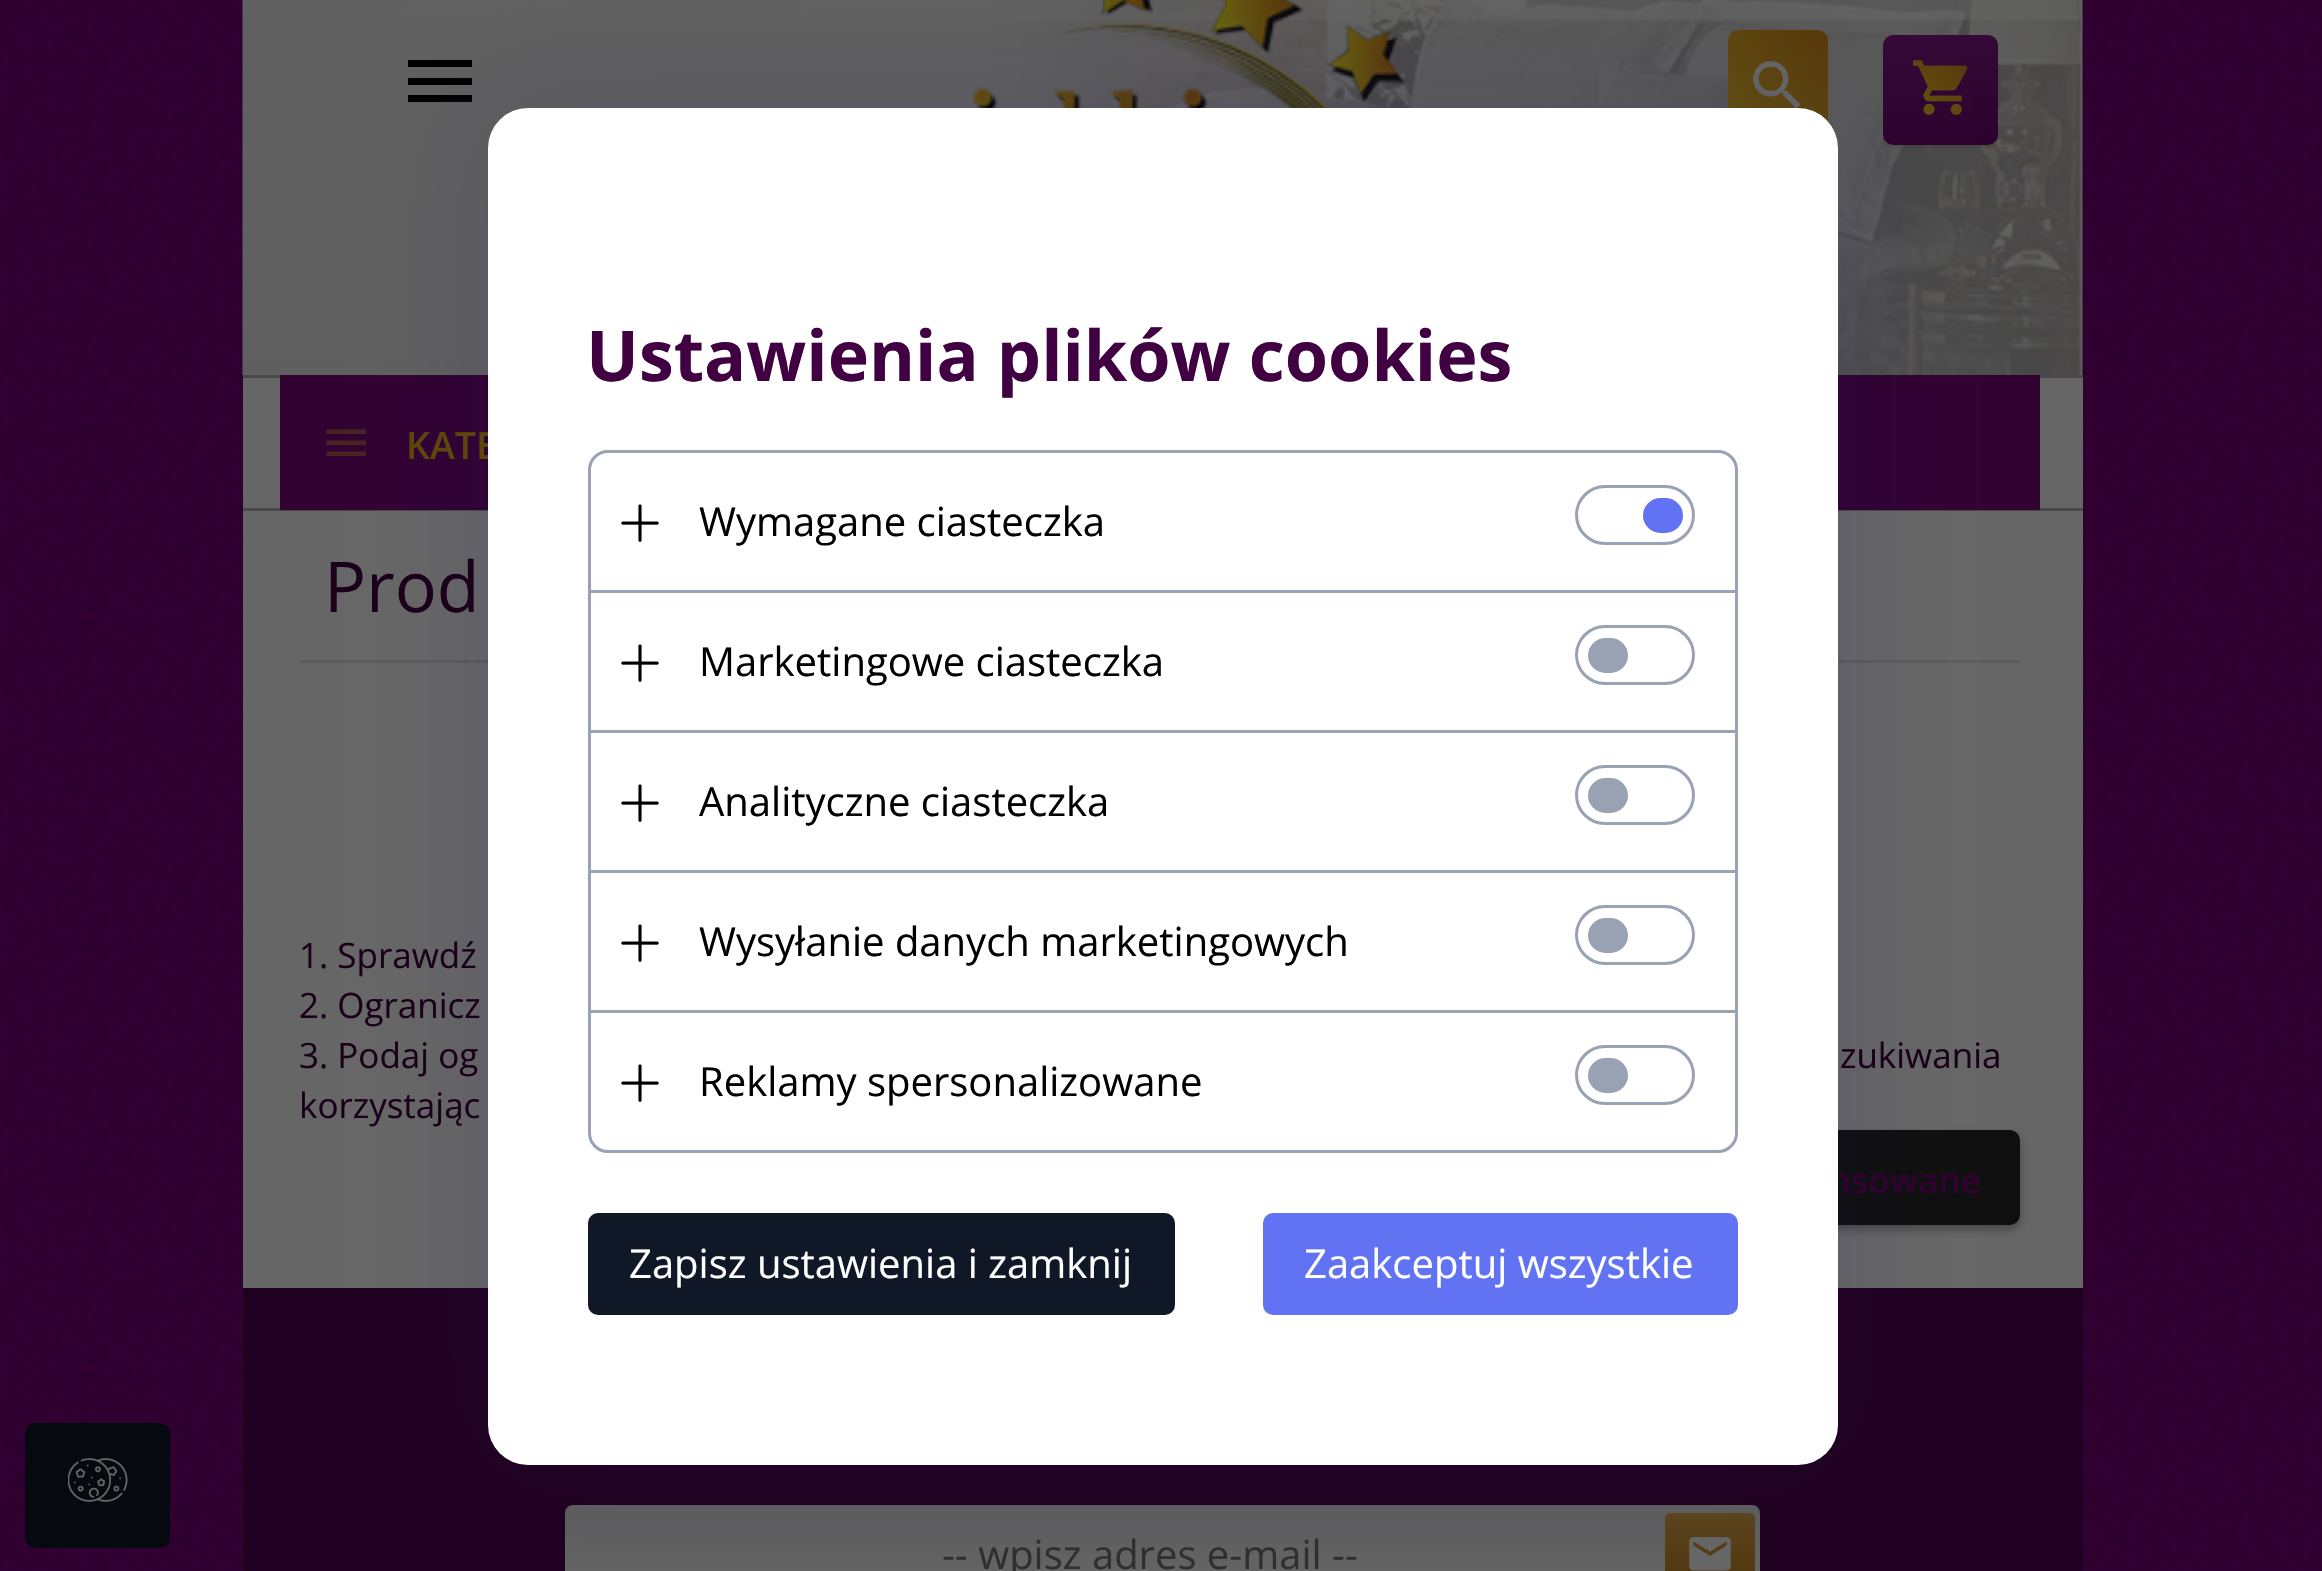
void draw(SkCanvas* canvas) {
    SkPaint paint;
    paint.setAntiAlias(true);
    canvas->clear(0xFFFFFFFF);
    canvas->drawImageRect(SkImages::DeferredFromEncodedData(SkData::MakeFromFileName("img1.png")), SkRect::MakeXYWH(0, 0, 2322, 1571), SkSamplingOptions());
    canvas->drawImageRect(SkImages::DeferredFromEncodedData(SkData::MakeFromFileName("img4.png")), SkRect::MakeXYWH(242, 0, 1841, 375), SkSamplingOptions());
    paint.setColor(0xFF000000);
    canvas->drawPath(SkPathBuilder().moveTo(408, 60).lineTo(472, 60).lineTo(472, 67).lineTo(408, 67).close().moveTo(408, 78).lineTo(472, 78).lineTo(472, 85).lineTo(408, 85).close().moveTo(408, 95).lineTo(472, 95).lineTo(472, 102).lineTo(408, 102).close().detach(), paint);
    canvas->drawImageRect(SkImages::DeferredFromEncodedData(SkData::MakeFromFileName("img5.png")), SkRect::MakeXYWH(971, 0, 435, 108), SkSamplingOptions());
    {
        const SkColor colors[] = {0xFF58380B, 0xFF63530E};
        const float stops[] = {0, 1};
        const SkPoint ends[] = {{1832, 34}, {1723, 143}};
        paint.setShader(SkGradientShader::MakeLinear(ends, colors, stops, 2, SkTileMode::kClamp));
        paint.setAlpha(255);
    }
    canvas->drawRoundRect(SkRect::MakeXYWH(1728, 30, 100, 118), 10, 10, paint);
    canvas->drawImageRect(SkImages::DeferredFromEncodedData(SkData::MakeFromFileName("img6.png")), SkRect::MakeXYWH(1753, 61, 48, 47), SkSamplingOptions());
    paint.setShader(nullptr);
    paint.setColor(0x12000000);
    canvas->drawPath(SkPathBuilder().moveTo(1883, 138).cubicTo(1883, 144, 1888, 148, 1893, 148).lineTo(1988, 148).cubicTo(1994, 148, 1998, 144, 1998, 138).lineTo(1998, 48).lineTo(1997, 45).lineTo(1998, 135).cubicTo(1998, 141, 1993, 145, 1988, 145).lineTo(1892, 145).cubicTo(1888, 145, 1884, 142, 1883, 138).close().detach(), paint);
    paint.setColor(0xFF310132);
    canvas->drawRoundRect(SkRect::MakeXYWH(1883, 35, 115, 110), 10, 10, paint);
    {
        const SkColor colors[] = {0x14000000, 0x14666666};
        const float stops[] = {0, 1};
        const SkPoint ends[] = {{1940, 145}, {1940, 35}};
        paint.setShader(SkGradientShader::MakeLinear(ends, colors, stops, 2, SkTileMode::kClamp));
        paint.setAlpha(255);
    }
    canvas->drawRoundRect(SkRect::MakeXYWH(1883, 35, 115, 110), 10, 10, paint);
    canvas->drawImageRect(SkImages::DeferredFromEncodedData(SkData::MakeFromFileName("img7.png")), SkRect::MakeXYWH(1913, 60, 55, 55), SkSamplingOptions());
    paint.setShader(nullptr);
    paint.setColor(0xFF666666);
    canvas->drawRect(SkRect::MakeXYWH(243, 378, 1840, 130), paint);
    paint.setColor(0xFF494949);
    canvas->drawRect(SkRect::MakeXYWH(243, 375, 1840, 3), paint);
    canvas->drawRect(SkRect::MakeXYWH(243, 508, 1840, 3), paint);
    paint.setColor(0xFF310132);
    canvas->drawRect(SkRect::MakeXYWH(280, 375, 1760, 135), paint);
    paint.setColor(0xFF46241F);
    canvas->drawPath(SkPathBuilder().moveTo(326.5f, 429.5f).lineTo(366, 429.5f).lineTo(366, 434).lineTo(326.5f, 434).close().moveTo(326.5f, 440.5f).lineTo(366, 440.5f).lineTo(366, 445).lineTo(326.5f, 445).close().moveTo(326.5f, 451.5f).lineTo(366, 451.5f).lineTo(366, 456).lineTo(326.5f, 456).close().detach(), paint);
    paint.setColor(0xFF666666);
    canvas->drawRect(SkRect::MakeXYWH(243, 511, 1840, 777), paint);
    paint.setColor(0xFF5C5C5C);
    canvas->drawRect(SkRect::MakeXYWH(300, 660, 1720, 3), paint);
    paint.setColor(0x4D000000);
    paint.setMaskFilter(SkMaskFilter::MakeBlur(kNormal_SkBlurStyle, 5));
    canvas->drawRoundRect(SkRect::MakeXYWH(1528, 1135, 492, 95), 10, 10, paint);
    paint.setMaskFilter(nullptr);
    paint.setColor(0xFF0F0F0F);
    canvas->drawRoundRect(SkRect::MakeXYWH(1528, 1130, 492, 95), 10, 10, paint);
    paint.setColor(0xFF200020);
    canvas->drawRect(SkRect::MakeXYWH(243, 1288, 1840, 283), paint);
    paint.setColor(0xFF666666);
    canvas->drawRoundRect(SkRect::MakeXYWH(565, 1505, 1195, 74), 8, 8, paint);
    {
        const SkColor colors[] = {0x17000000, 0x17666666};
        const float stops[] = {0, 1};
        const SkPoint ends[] = {{1163, 1505}, {1163, 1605}};
        paint.setShader(SkGradientShader::MakeLinear(ends, colors, stops, 2, SkTileMode::kClamp));
        paint.setAlpha(255);
    }
    canvas->drawRoundRect(SkRect::MakeXYWH(565, 1505, 1195, 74), 8, 8, paint);
    paint.setShader(nullptr);
    paint.setColor(0xFF5A3D0C);
    canvas->drawRoundRect(SkRect::MakeXYWH(1665, 1513, 90, 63), 5, 5, paint);
    {
        const SkColor colors[] = {0x2B000000, 0x2B666666};
        const float stops[] = {0, 1};
        const SkPoint ends[] = {{1710, 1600}, {1710, 1513}};
        paint.setShader(SkGradientShader::MakeLinear(ends, colors, stops, 2, SkTileMode::kClamp));
        paint.setAlpha(255);
    }
    canvas->drawRoundRect(SkRect::MakeXYWH(1665, 1513, 90, 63), 5, 5, paint);
    canvas->drawImageRect(SkImages::DeferredFromEncodedData(SkData::MakeFromFileName("img8.png")), SkRect::MakeXYWH(1689, 1537, 42, 34), SkSamplingOptions());
    paint.setShader(nullptr);
    paint.setColor(0x26211A69);
    paint.setMaskFilter(SkMaskFilter::MakeBlur(kNormal_SkBlurStyle, 60));
    canvas->drawRoundRect(SkRect::MakeXYWH(488, 108, 1350, 1357), 40, 40, paint);
    paint.setMaskFilter(nullptr);
    SkFont font1(fontMgr->matchFamilyStyle("Open Sans", SkFontStyle(600, SkFontStyle::kNormal_Width, SkFontStyle::kUpright_Slant)), 37.5f);
    font1.setSubpixel(true);
    paint.setColor(0xFF5C460B);
    canvas->drawString("KATE", 406, 459, font1, paint);
    SkFont font2(fontMgr->matchFamilyStyle("Open Sans", SkFontStyle(600, SkFontStyle::kNormal_Width, SkFontStyle::kUpright_Slant)), 35);
    font2.setSubpixel(true);
    paint.setColor(0xFF310132);
    canvas->drawString("nsowane", 1829, 1193, font2, paint);
    paint.setColor(0xFFFFFFFF);
    canvas->drawRoundRect(SkRect::MakeXYWH(488, 108, 1350, 1357), 40, 40, paint);
    SkFont font3(fontMgr->matchFamilyStyle("Open Sans", SkFontStyle::Bold()), 70);
    font3.setSubpixel(true);
    paint.setColor(0xFF400042);
    canvas->drawString("Ustawienia plików cookies", 586, 381, font3, paint);
    paint.setStyle(SkPaint::kStroke_Style);
    paint.setStrokeWidth(3);
    paint.setColor(0xFF98A2B3);
    canvas->drawRoundRect(SkRect::MakeXYWH(589.5f, 451.5f, 1147, 700), 18.5f, 18.5f, paint);
    canvas->drawImageRect(SkImages::DeferredFromEncodedData(SkData::MakeFromFileName("img2.png")), SkRect::MakeXYWH(621, 504, 38, 38), SkSamplingOptions());
    SkFont font4(fontMgr->matchFamilyStyle("Open Sans", SkFontStyle::Normal()), 40);
    font4.setSubpixel(true);
    paint.setStyle(SkPaint::kFill_Style);
    paint.setColor(0xFF000000);
    canvas->drawString("Wymagane ciasteczka", 699, 536, font4, paint);
    paint.setStyle(SkPaint::kStroke_Style);
    paint.setColor(0xFF98A2B3);
    canvas->drawRoundRect(SkRect::MakeXYWH(1576.5f, 486.5f, 117, 57), 28.5f, 28.5f, paint);
    paint.setStyle(SkPaint::kFill_Style);
    paint.setColor(0xFF6172F3);
    canvas->drawRoundRect(SkRect::MakeXYWH(1644.5f, 499.5f, 37, 32), 16, 16, paint);
    paint.setStyle(SkPaint::kStroke_Style);
    canvas->drawRoundRect(SkRect::MakeXYWH(1644.5f, 499.5f, 37, 32), 16, 16, paint);
    paint.setStyle(SkPaint::kFill_Style);
    paint.setColor(0xFF98A2B3);
    canvas->drawRect(SkRect::MakeXYWH(590, 590, 1145, 3), paint);
    canvas->drawImageRect(SkImages::DeferredFromEncodedData(SkData::MakeFromFileName("img2.png")), SkRect::MakeXYWH(621, 644, 38, 38), SkSamplingOptions());
    paint.setColor(0xFF000000);
    canvas->drawString("Marketingowe ciasteczka", 699, 676, font4, paint);
    paint.setStyle(SkPaint::kStroke_Style);
    paint.setColor(0xFF98A2B3);
    canvas->drawRoundRect(SkRect::MakeXYWH(1576.5f, 626.5f, 117, 57), 28.5f, 28.5f, paint);
    paint.setStyle(SkPaint::kFill_Style);
    canvas->drawRoundRect(SkRect::MakeXYWH(1589.5f, 639.5f, 37, 32), 16, 16, paint);
    paint.setStyle(SkPaint::kStroke_Style);
    canvas->drawRoundRect(SkRect::MakeXYWH(1589.5f, 639.5f, 37, 32), 16, 16, paint);
    paint.setStyle(SkPaint::kFill_Style);
    canvas->drawRect(SkRect::MakeXYWH(590, 730, 1145, 3), paint);
    canvas->drawImageRect(SkImages::DeferredFromEncodedData(SkData::MakeFromFileName("img2.png")), SkRect::MakeXYWH(621, 784, 38, 38), SkSamplingOptions());
    paint.setColor(0xFF000000);
    canvas->drawString("Analityczne ciasteczka", 699, 816, font4, paint);
    paint.setStyle(SkPaint::kStroke_Style);
    paint.setColor(0xFF98A2B3);
    canvas->drawRoundRect(SkRect::MakeXYWH(1576.5f, 766.5f, 117, 57), 28.5f, 28.5f, paint);
    paint.setStyle(SkPaint::kFill_Style);
    canvas->drawRoundRect(SkRect::MakeXYWH(1589.5f, 779.5f, 37, 32), 16, 16, paint);
    paint.setStyle(SkPaint::kStroke_Style);
    canvas->drawRoundRect(SkRect::MakeXYWH(1589.5f, 779.5f, 37, 32), 16, 16, paint);
    paint.setStyle(SkPaint::kFill_Style);
    canvas->drawRect(SkRect::MakeXYWH(590, 870, 1145, 3), paint);
    canvas->drawImageRect(SkImages::DeferredFromEncodedData(SkData::MakeFromFileName("img2.png")), SkRect::MakeXYWH(621, 924, 38, 38), SkSamplingOptions());
    paint.setColor(0xFF000000);
    canvas->drawString("Wysyłanie danych marketingowych", 699, 956, font4, paint);
    paint.setStyle(SkPaint::kStroke_Style);
    paint.setColor(0xFF98A2B3);
    canvas->drawRoundRect(SkRect::MakeXYWH(1576.5f, 906.5f, 117, 57), 28.5f, 28.5f, paint);
    paint.setStyle(SkPaint::kFill_Style);
    canvas->drawRoundRect(SkRect::MakeXYWH(1589.5f, 919.5f, 37, 32), 16, 16, paint);
    paint.setStyle(SkPaint::kStroke_Style);
    canvas->drawRoundRect(SkRect::MakeXYWH(1589.5f, 919.5f, 37, 32), 16, 16, paint);
    paint.setStyle(SkPaint::kFill_Style);
    canvas->drawRect(SkRect::MakeXYWH(590, 1010, 1145, 3), paint);
    canvas->drawImageRect(SkImages::DeferredFromEncodedData(SkData::MakeFromFileName("img2.png")), SkRect::MakeXYWH(621, 1064, 38, 38), SkSamplingOptions());
    paint.setColor(0xFF000000);
    canvas->drawString("Reklamy spersonalizowane", 699, 1096, font4, paint);
    paint.setStyle(SkPaint::kStroke_Style);
    paint.setColor(0xFF98A2B3);
    canvas->drawRoundRect(SkRect::MakeXYWH(1576.5f, 1046.5f, 117, 57), 28.5f, 28.5f, paint);
    paint.setStyle(SkPaint::kFill_Style);
    canvas->drawRoundRect(SkRect::MakeXYWH(1589.5f, 1059.5f, 37, 32), 16, 16, paint);
    paint.setStyle(SkPaint::kStroke_Style);
    canvas->drawRoundRect(SkRect::MakeXYWH(1589.5f, 1059.5f, 37, 32), 16, 16, paint);
    paint.setStyle(SkPaint::kFill_Style);
    paint.setColor(0xFF101828);
    canvas->drawRoundRect(SkRect::MakeXYWH(589.5f, 1214.5f, 584, 99), 8.5f, 8.5f, paint);
    paint.setStyle(SkPaint::kStroke_Style);
    canvas->drawRoundRect(SkRect::MakeXYWH(589.5f, 1214.5f, 584, 99), 8.5f, 8.5f, paint);
    paint.setStyle(SkPaint::kFill_Style);
    paint.setColor(0xFFFFFFFF);
    canvas->drawString("Zapisz ustawienia i zamknij", 629, 1278, font4, paint);
    paint.setColor(0xFF6172F3);
    canvas->drawRoundRect(SkRect::MakeXYWH(1263, 1213, 475, 102), 10, 10, paint);
    paint.setColor(0xFFFFFFFF);
    canvas->drawString("Zaakceptuj wszystkie", 1304, 1278, font4, paint);
    paint.setColor(0xFF060A10);
    canvas->drawRoundRect(SkRect::MakeXYWH(26.5f, 1424.5f, 142, 122), 8.5f, 8.5f, paint);
    paint.setStyle(SkPaint::kStroke_Style);
    canvas->drawRoundRect(SkRect::MakeXYWH(26.5f, 1424.5f, 142, 122), 8.5f, 8.5f, paint);
    canvas->drawImageRect(SkImages::DeferredFromEncodedData(SkData::MakeFromFileName("img3.png")), SkRect::MakeXYWH(68, 1458, 60, 44), SkSamplingOptions());
    SkFont font5(fontMgr->matchFamilyStyle("Open Sans", SkFontStyle::Normal()), 70);
    font5.setSubpixel(true);
    paint.setStyle(SkPaint::kFill_Style);
    paint.setColor(0xFF1A001A);
    canvas->drawString("Prod", 324, 612, font5, paint);
    SkFont font6(fontMgr->matchFamilyStyle("Open Sans", SkFontStyle::Normal()), 35);
    font6.setSubpixel(true);
    canvas->drawString("1. Sprawdź", 299, 968, font6, paint);
    canvas->drawString("2. Ogranicz", 299, 1018, font6, paint);
    canvas->drawString("3. Podaj og", 299, 1068, font6, paint);
    canvas->drawString("zukiwania", 1840, 1068, font6, paint);
    canvas->drawString("korzystając", 299, 1118, font6, paint);
    paint.setColor(0xFF2F2F2F);
    canvas->drawString("-- wpisz adres e-mail --", 942, 1569, font4, paint);
}
